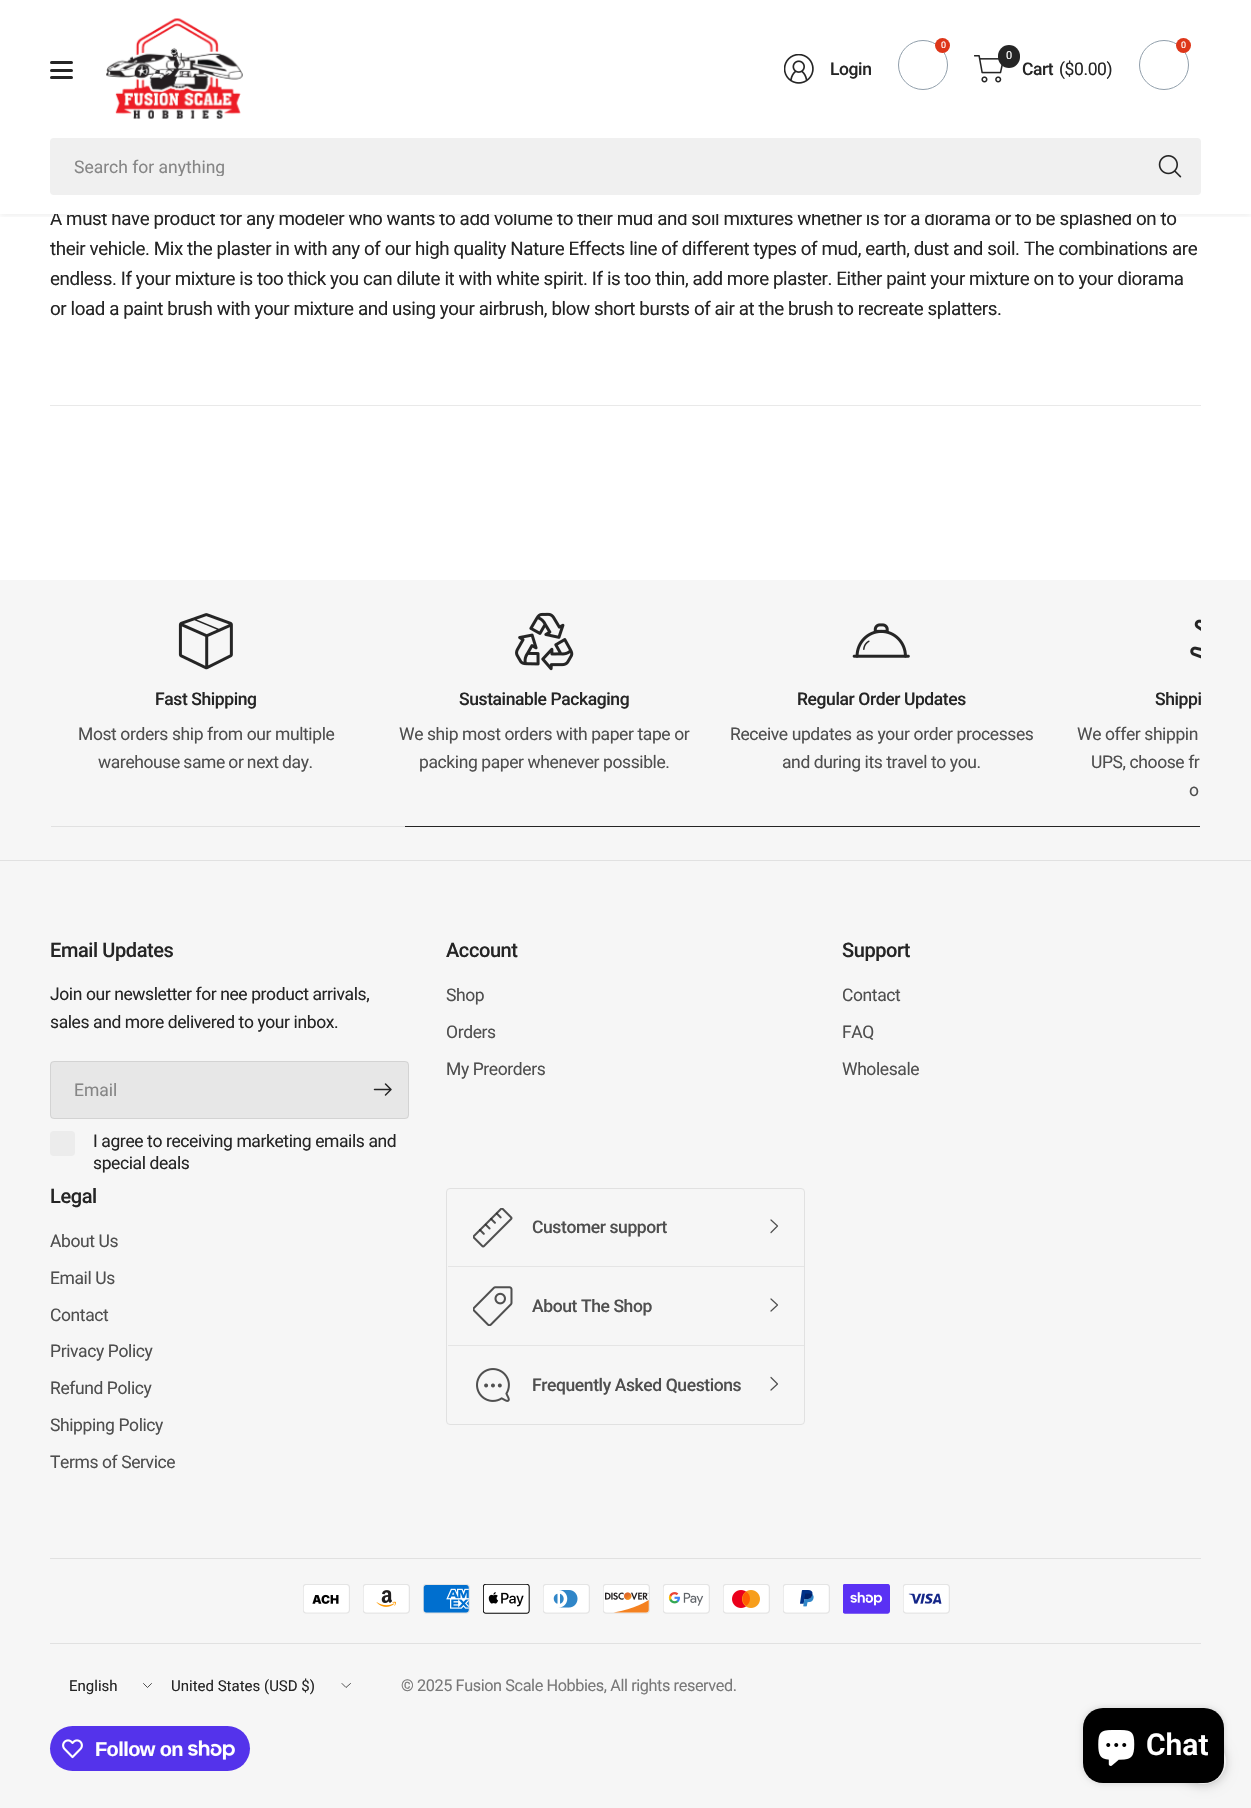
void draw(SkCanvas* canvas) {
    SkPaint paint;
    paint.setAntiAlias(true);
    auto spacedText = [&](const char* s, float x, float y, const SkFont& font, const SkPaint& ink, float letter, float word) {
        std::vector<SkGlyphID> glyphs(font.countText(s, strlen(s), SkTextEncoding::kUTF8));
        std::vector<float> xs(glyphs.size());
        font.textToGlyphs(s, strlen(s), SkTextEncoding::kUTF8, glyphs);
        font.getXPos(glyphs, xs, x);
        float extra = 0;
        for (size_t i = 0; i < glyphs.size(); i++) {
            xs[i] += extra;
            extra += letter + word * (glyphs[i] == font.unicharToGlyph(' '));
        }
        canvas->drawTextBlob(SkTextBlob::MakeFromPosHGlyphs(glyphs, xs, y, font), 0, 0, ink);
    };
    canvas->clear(0xFFFFFFFF);
    SkFont font1(fontMgr->matchFamilyStyle("Roboto", SkFontStyle::Normal()), 18.75f);
    font1.setSubpixel(true);
    paint.setColor(0xFF252525);
    spacedText("A must have product for any modeler who wants to add volume to their mud and soil mixtures whether is for a diorama or to be splashed on to", 50, 225, font1, paint, -0.4f, 0);
    paint.setColor(0xFFFFFFFF);
    canvas->drawRect(SkRect::MakeXYWH(54, 210, 1109, 4), paint);
    canvas->save();
    canvas->clipRect(SkRect::MakeXYWH(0, 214, 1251, 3));
    paint.setColor(0x0F000000);
    paint.setMaskFilter(SkMaskFilter::MakeBlur(kNormal_SkBlurStyle, 3));
    canvas->drawRect(SkRect::MakeXYWH(0, 3, 1251, 213), paint);
    paint.setMaskFilter(nullptr);
    canvas->restore();
    paint.setColor(0xFF252525);
    canvas->drawRoundRect(SkRect::MakeXYWH(50, 61, 23, 3), 1.5f, 1.5f, paint);
    canvas->drawRoundRect(SkRect::MakeXYWH(50, 69, 23, 3), 1.5f, 1.5f, paint);
    canvas->drawRoundRect(SkRect::MakeXYWH(50, 76, 23, 3), 1.5f, 1.5f, paint);
    canvas->drawImageRect(SkImages::DeferredFromEncodedData(SkData::MakeFromFileName("img1.png")), SkRect::MakeXYWH(106, 18, 137, 101), SkSamplingOptions());
    paint.setStyle(SkPaint::kStroke_Style);
    paint.setStrokeWidth(1);
    paint.setColor(0xFF919FAB);
    canvas->drawCircle(923, 65, 24.5f, paint);
    paint.setStyle(SkPaint::kFill_Style);
    paint.setColor(0xFFDE3619);
    canvas->drawCircle(942.5f, 45.5f, 7.5f, paint);
    SkFont font2(fontMgr->matchFamilyStyle("Roboto", SkFontStyle::Normal()), 9);
    font2.setSubpixel(true);
    paint.setColor(0xFFFFFFFF);
    spacedText("0", 941, 48, font2, paint, -0.4f, 0);
    paint.setStyle(SkPaint::kStroke_Style);
    paint.setColor(0xFF919FAB);
    canvas->drawCircle(1164, 65, 24.5f, paint);
    paint.setStyle(SkPaint::kFill_Style);
    paint.setColor(0xFFDE3619);
    canvas->drawCircle(1183.5f, 45.5f, 7.5f, paint);
    paint.setColor(0xFFFFFFFF);
    spacedText("0", 1181, 48, font2, paint, -0.4f, 0);
    canvas->drawImageRect(SkImages::DeferredFromEncodedData(SkData::MakeFromFileName("img2.png")), SkRect::MakeXYWH(784, 54, 30, 30), SkSamplingOptions());
    SkFont font3(fontMgr->matchFamilyStyle("Roboto", SkFontStyle(500, SkFontStyle::kNormal_Width, SkFontStyle::kUpright_Slant)), 17.5f);
    font3.setSubpixel(true);
    paint.setColor(0xFF252525);
    spacedText("Login", 830, 75, font3, paint, -0.4f, 0);
    canvas->drawImageRect(SkImages::DeferredFromEncodedData(SkData::MakeFromFileName("img3.png")), SkRect::MakeXYWH(974, 55, 29, 28), SkSamplingOptions());
    canvas->drawRoundRect(SkRect::MakeXYWH(998, 45, 22, 23), 11, 11, paint);
    SkFont font4(fontMgr->matchFamilyStyle("Roboto", SkFontStyle::Normal()), 11);
    font4.setSubpixel(true);
    paint.setColor(0xFFFFFFFF);
    spacedText("0", 1006, 59, font4, paint, -0.4f, 0);
    paint.setColor(0xFF252525);
    spacedText("Cart", 1022, 75, font3, paint, -0.4f, 0);
    SkFont font5(fontMgr->matchFamilyStyle("Roboto", SkFontStyle::Normal()), 17.5f);
    font5.setSubpixel(true);
    spacedText("($0.00)", 1059, 75, font5, paint, -0.4f, 0);
    paint.setColor(0xFFF0F0F0);
    canvas->drawRoundRect(SkRect::MakeXYWH(50, 138, 1151, 57), 4, 4, paint);
    canvas->save();
    canvas->clipRect(SkRect::MakeXYWH(74, 156, 1046, 20));
    paint.setColor(0xFF868686);
    canvas->drawString("Search for anything", 74, 173, font5, paint);
    canvas->restore();
    canvas->drawImageRect(SkImages::DeferredFromEncodedData(SkData::MakeFromFileName("img4.png")), SkRect::MakeXYWH(1158, 155, 24, 23), SkSamplingOptions());
    paint.setColor(0xFF252525);
    spacedText("their vehicle. Mix the plaster in with any of our high quality Nature Effects line of different types of mud, earth, dust and soil. The combinations are", 50, 255, font1, paint, -0.4f, 0);
    spacedText("endless. If your mixture is too thick you can dilute it with white spirit. If is too thin, add more plaster. Either paint your mixture on to your diorama", 50, 285, font1, paint, -0.4f, 0);
    spacedText("or load a paint brush with your mixture and using your airbrush, blow short bursts of air at the brush to recreate splatters.", 50, 315, font1, paint, -0.4f, 0);
    paint.setColor(0xFFE9E9E9);
    canvas->drawRect(SkRect::MakeXYWH(50, 405, 1151, 1), paint);
    paint.setColor(0xFFF6F6F6);
    canvas->drawRect(SkRect::MakeXYWH(0, 580, 1251, 280), paint);
    canvas->drawImageRect(SkImages::DeferredFromEncodedData(SkData::MakeFromFileName("img5.png")), SkRect::MakeXYWH(178, 613, 55, 57), SkSamplingOptions());
    paint.setColor(0xFF252525);
    spacedText("Fast Shipping", 155, 705, font3, paint, -0.4f, 0);
    paint.setColor(0xFF4F4F4F);
    spacedText("Most orders ship from our multiple", 78, 740, font5, paint, -0.4f, 0);
    spacedText("warehouse same or next day.", 98, 768, font5, paint, -0.4f, -0.5f);
    canvas->drawImageRect(SkImages::DeferredFromEncodedData(SkData::MakeFromFileName("img6.png")), SkRect::MakeXYWH(515, 612, 59, 59), SkSamplingOptions());
    paint.setColor(0xFF252525);
    spacedText("Sustainable Packaging", 459, 705, font3, paint, -0.4f, 0);
    paint.setColor(0xFF4F4F4F);
    spacedText("We ship most orders with paper tape or", 399, 740, font5, paint, -0.4f, 0);
    spacedText("packing paper whenever possible.", 419, 768, font5, paint, -0.4f, 0);
    canvas->drawImageRect(SkImages::DeferredFromEncodedData(SkData::MakeFromFileName("img7.png")), SkRect::MakeXYWH(852, 623, 58, 35), SkSamplingOptions());
    paint.setColor(0xFF252525);
    spacedText("Regular Order Updates", 797, 705, font3, paint, -0.4f, 0);
    paint.setColor(0xFF4F4F4F);
    spacedText("Receive updates as your order processes", 730, 740, font5, paint, -0.4f, 0);
    spacedText("and during its travel to you.", 782, 768, font5, paint, -0.4f, 0);
    canvas->drawImageRect(SkImages::DeferredFromEncodedData(SkData::MakeFromFileName("img8.png")), SkRect::MakeXYWH(1190, 619, 11, 40), SkSamplingOptions());
    paint.setColor(0xFF252525);
    spacedText("Shippi", 1155, 705, font3, paint, -0.4f, 0);
    paint.setColor(0xFF4F4F4F);
    spacedText("We offer shippin", 1077, 740, font5, paint, -0.4f, 0);
    spacedText("UPS, choose fr", 1091, 768, font5, paint, -0.4f, 0);
    spacedText("o", 1189, 796, font5, paint, -0.4f, 0);
    paint.setColor(0xFFE1E1E1);
    canvas->drawRect(SkRect::MakeXYWH(51, 826, 354, 1), paint);
    paint.setColor(0xFF252525);
    canvas->drawRect(SkRect::MakeXYWH(405, 826, 795, 1), paint);
    paint.setColor(0xFFE1E1E1);
    canvas->drawRect(SkRect::MakeXYWH(0, 860, 1251, 1), paint);
    paint.setColor(0xFFF6F6F6);
    canvas->drawRect(SkRect::MakeXYWH(0, 861, 1251, 947), paint);
    SkFont font6(fontMgr->matchFamilyStyle("Roboto", SkFontStyle(500, SkFontStyle::kNormal_Width, SkFontStyle::kUpright_Slant)), 20);
    font6.setSubpixel(true);
    paint.setColor(0xFF252525);
    spacedText("Email Updates", 50, 957, font6, paint, -0.4f, 0);
    spacedText("Join our newsletter for nee product arrivals,", 50, 1000, font5, paint, -0.4f, 0);
    spacedText("sales and more delivered to your inbox.", 50, 1028, font5, paint, -0.4f, 0);
    paint.setColor(0xFFE7E7E7);
    canvas->drawRoundRect(SkRect::MakeXYWH(50, 1061, 359, 58), 4, 4, paint);
    paint.setStyle(SkPaint::kStroke_Style);
    paint.setColor(0x1A252525);
    canvas->drawRoundRect(SkRect::MakeXYWH(50.5f, 1061.5f, 358, 57), 3.5f, 3.5f, paint);
    paint.setStyle(SkPaint::kFill_Style);
    paint.setColor(0xFF868686);
    canvas->drawString("Email", 74, 1096, font5, paint);
    paint.setStyle(SkPaint::kStroke_Style);
    paint.setStrokeWidth(1.5f);
    paint.setStrokeCap(SkPaint::kRound_Cap);
    paint.setStrokeJoin(SkPaint::kRound_Join);
    paint.setColor(0xFF252525);
    canvas->drawPath(SkPathBuilder().moveTo(374.5f, 1089.5f).lineTo(389.5f, 1089.5f).moveTo(385.5f, 1084).lineTo(391, 1089.5f).lineTo(385.5f, 1095).detach(), paint);
    paint.setStyle(SkPaint::kFill_Style);
    paint.setColor(0xFFECECEC);
    canvas->drawRoundRect(SkRect::MakeXYWH(50, 1131, 25, 25), 4, 4, paint);
    paint.setColor(0xFF252525);
    spacedText("I agree to receiving marketing emails and", 93, 1147, font5, paint, -0.4f, 0);
    spacedText("special deals", 93, 1169, font5, paint, -0.4f, 0);
    spacedText("Account", 446, 957, font6, paint, -0.4f, 0);
    paint.setColor(0xFF4F4F4F);
    spacedText("Shop", 446, 1001, font5, paint, -0.4f, 0);
    spacedText("Orders", 446, 1038, font5, paint, -0.4f, 0);
    spacedText("My Preorders", 446, 1075, font5, paint, -0.4f, 0);
    paint.setColor(0xFF252525);
    spacedText("Support", 842, 957, font6, paint, -0.4f, 0);
    paint.setColor(0xFF4F4F4F);
    spacedText("Contact", 842, 1001, font5, paint, -0.4f, 0);
    spacedText("FAQ", 842, 1038, font5, paint, -0.4f, 0);
    spacedText("Wholesale", 842, 1075, font5, paint, -0.4f, 0);
    paint.setColor(0xFF252525);
    spacedText("Legal", 50, 1203, font6, paint, -0.4f, 0);
    paint.setColor(0xFF4F4F4F);
    spacedText("About Us", 50, 1247, font5, paint, -0.4f, 0);
    spacedText("Email Us", 50, 1284, font5, paint, -0.4f, 0);
    spacedText("Contact", 50, 1321, font5, paint, -0.4f, 0);
    spacedText("Privacy Policy", 50, 1357, font5, paint, -0.4f, 0);
    spacedText("Refund Policy", 50, 1394, font5, paint, -0.4f, 0);
    spacedText("Shipping Policy", 50, 1431, font5, paint, -0.4f, 0);
    spacedText("Terms of Service", 50, 1468, font5, paint, -0.4f, 0);
    paint.setStyle(SkPaint::kStroke_Style);
    paint.setStrokeWidth(1);
    paint.setStrokeCap(SkPaint::kButt_Cap);
    paint.setStrokeJoin(SkPaint::kMiter_Join);
    paint.setColor(0xFFE1E1E1);
    canvas->drawRoundRect(SkRect::MakeXYWH(446.5f, 1188.5f, 358, 236), 3.5f, 3.5f, paint);
    canvas->drawImageRect(SkImages::DeferredFromEncodedData(SkData::MakeFromFileName("img9.png")), SkRect::MakeXYWH(473, 1208, 40, 40), SkSamplingOptions());
    paint.setStyle(SkPaint::kFill_Style);
    paint.setColor(0xFF4F4F4F);
    spacedText("Customer support", 532, 1233, font3, paint, -0.4f, 0);
    paint.setStyle(SkPaint::kStroke_Style);
    paint.setStrokeWidth(1.2f);
    paint.setStrokeCap(SkPaint::kRound_Cap);
    paint.setStrokeJoin(SkPaint::kRound_Join);
    canvas->drawPath(SkPathBuilder().moveTo(771, 1220).lineTo(777.5f, 1226).lineTo(771, 1232.5f).detach(), paint);
    paint.setStyle(SkPaint::kFill_Style);
    paint.setColor(0xFFE5E5E5);
    canvas->drawRect(SkRect::MakeXYWH(448, 1266, 356, 1), paint);
    canvas->drawImageRect(SkImages::DeferredFromEncodedData(SkData::MakeFromFileName("img10.png")), SkRect::MakeXYWH(473, 1286, 40, 40), SkSamplingOptions());
    paint.setColor(0xFF4F4F4F);
    spacedText("About The Shop", 532, 1312, font3, paint, -0.4f, 0);
    paint.setStyle(SkPaint::kStroke_Style);
    canvas->drawPath(SkPathBuilder().moveTo(771, 1299).lineTo(777.5f, 1305).lineTo(771, 1311).detach(), paint);
    paint.setStyle(SkPaint::kFill_Style);
    paint.setColor(0xFFE5E5E5);
    canvas->drawRect(SkRect::MakeXYWH(448, 1345, 356, 1), paint);
    canvas->drawImageRect(SkImages::DeferredFromEncodedData(SkData::MakeFromFileName("img11.png")), SkRect::MakeXYWH(476, 1368, 34, 34), SkSamplingOptions());
    paint.setColor(0xFF4F4F4F);
    spacedText("Frequently Asked Questions", 532, 1391, font3, paint, -0.4f, 0);
    paint.setStyle(SkPaint::kStroke_Style);
    canvas->drawPath(SkPathBuilder().moveTo(771, 1377.5f).lineTo(777.5f, 1384).lineTo(771, 1390).detach(), paint);
    paint.setStyle(SkPaint::kFill_Style);
    paint.setColor(0xFFE1E1E1);
    canvas->drawRect(SkRect::MakeXYWH(50, 1558, 1151, 1), paint);
    canvas->drawImageRect(SkImages::DeferredFromEncodedData(SkData::MakeFromFileName("img12.png")), SkRect::MakeXYWH(303, 1584, 47, 30), SkSamplingOptions());
    canvas->drawImageRect(SkImages::DeferredFromEncodedData(SkData::MakeFromFileName("img13.png")), SkRect::MakeXYWH(363, 1584, 47, 30), SkSamplingOptions());
    canvas->drawImageRect(SkImages::DeferredFromEncodedData(SkData::MakeFromFileName("img14.png")), SkRect::MakeXYWH(423, 1584, 47, 30), SkSamplingOptions());
    canvas->drawImageRect(SkImages::DeferredFromEncodedData(SkData::MakeFromFileName("img15.png")), SkRect::MakeXYWH(483, 1584, 47, 30), SkSamplingOptions());
    canvas->drawImageRect(SkImages::DeferredFromEncodedData(SkData::MakeFromFileName("img16.png")), SkRect::MakeXYWH(543, 1584, 47, 30), SkSamplingOptions());
    canvas->drawImageRect(SkImages::DeferredFromEncodedData(SkData::MakeFromFileName("img17.png")), SkRect::MakeXYWH(603, 1584, 47, 30), SkSamplingOptions());
    canvas->drawImageRect(SkImages::DeferredFromEncodedData(SkData::MakeFromFileName("img18.png")), SkRect::MakeXYWH(663, 1584, 47, 30), SkSamplingOptions());
    canvas->drawImageRect(SkImages::DeferredFromEncodedData(SkData::MakeFromFileName("img19.png")), SkRect::MakeXYWH(723, 1584, 47, 30), SkSamplingOptions());
    canvas->drawImageRect(SkImages::DeferredFromEncodedData(SkData::MakeFromFileName("img20.png")), SkRect::MakeXYWH(783, 1584, 47, 30), SkSamplingOptions());
    canvas->drawImageRect(SkImages::DeferredFromEncodedData(SkData::MakeFromFileName("img21.png")), SkRect::MakeXYWH(843, 1584, 47, 30), SkSamplingOptions());
    canvas->drawImageRect(SkImages::DeferredFromEncodedData(SkData::MakeFromFileName("img22.png")), SkRect::MakeXYWH(903, 1584, 47, 30), SkSamplingOptions());
    canvas->drawRect(SkRect::MakeXYWH(50, 1643, 1151, 1), paint);
    SkFont font7(fontMgr->matchFamilyStyle("Roboto", SkFontStyle::Normal()), 15);
    font7.setSubpixel(true);
    paint.setColor(0xFF252525);
    canvas->drawString("English", 69, 1691, font7, paint);
    paint.setStyle(SkPaint::kStroke_Style);
    paint.setStrokeWidth(0.8f);
    canvas->drawPath(SkPathBuilder().moveTo(151.5f, 1683.5f).lineTo(147.5f, 1687.5f).lineTo(143.5f, 1683.5f).detach(), paint);
    paint.setStyle(SkPaint::kFill_Style);
    canvas->drawString("United States (USD $)", 171, 1691, font7, paint);
    paint.setStyle(SkPaint::kStroke_Style);
    canvas->drawPath(SkPathBuilder().moveTo(350.5f, 1683.5f).lineTo(346, 1687.5f).lineTo(342, 1683.5f).detach(), paint);
    SkFont font8(fontMgr->matchFamilyStyle("Roboto", SkFontStyle::Normal()), 16.25f);
    font8.setSubpixel(true);
    paint.setStyle(SkPaint::kFill_Style);
    paint.setColor(0xFF797979);
    spacedText("© 2025 Fusion Scale Hobbies, All rights reserved.", 401, 1691, font8, paint, -0.4f, 0);
    paint.setColor(0xFF5433EB);
    canvas->drawRoundRect(SkRect::MakeXYWH(50, 1726, 200, 45), 22.5f, 22.5f, paint);
    canvas->drawImageRect(SkImages::DeferredFromEncodedData(SkData::MakeFromFileName("img23.png")), SkRect::MakeXYWH(62, 1739, 21, 20), SkSamplingOptions());
    SkFont font9(fontMgr->matchFamilyStyle("Liberation Sans", SkFontStyle::Bold()), 20);
    font9.setSubpixel(true);
    paint.setColor(0xFFFFFFFF);
    spacedText("Follow on", 95, 1756, font9, paint, -0.6f, 0);
    canvas->drawImageRect(SkImages::DeferredFromEncodedData(SkData::MakeFromFileName("img24.png")), SkRect::MakeXYWH(188, 1740, 47, 20), SkSamplingOptions());
    paint.setColor(0x26000000);
    paint.setMaskFilter(SkMaskFilter::MakeBlur(kNormal_SkBlurStyle, 6));
    canvas->drawRoundRect(SkRect::MakeXYWH(1181, 1741, 45, 45), 22.5f, 22.5f, paint);
    paint.setMaskFilter(nullptr);
    paint.setColor(0xFFFFFFFF);
    canvas->drawCircle(1203.5f, 1761.5f, 22.5f, paint);
    paint.setColor(0x26000000);
    paint.setMaskFilter(SkMaskFilter::MakeBlur(kNormal_SkBlurStyle, 3));
    canvas->drawRoundRect(SkRect::MakeXYWH(1083, 1708, 141, 75), 20, 20, paint);
    paint.setMaskFilter(nullptr);
    paint.setColor(0xFF000000);
    canvas->drawRoundRect(SkRect::MakeXYWH(1083, 1708, 141, 75), 20, 20, paint);
    canvas->drawImageRect(SkImages::DeferredFromEncodedData(SkData::MakeFromFileName("img25.png")), SkRect::MakeXYWH(1098, 1730, 37, 36), SkSamplingOptions());
    SkFont font10(fontMgr->matchFamilyStyle("Roboto", SkFontStyle(600, SkFontStyle::kNormal_Width, SkFontStyle::kUpright_Slant)), 30);
    font10.setSubpixel(true);
    paint.setColor(0xFFFFFFFF);
    canvas->drawString("Chat", 1146, 1755, font10, paint);
}
